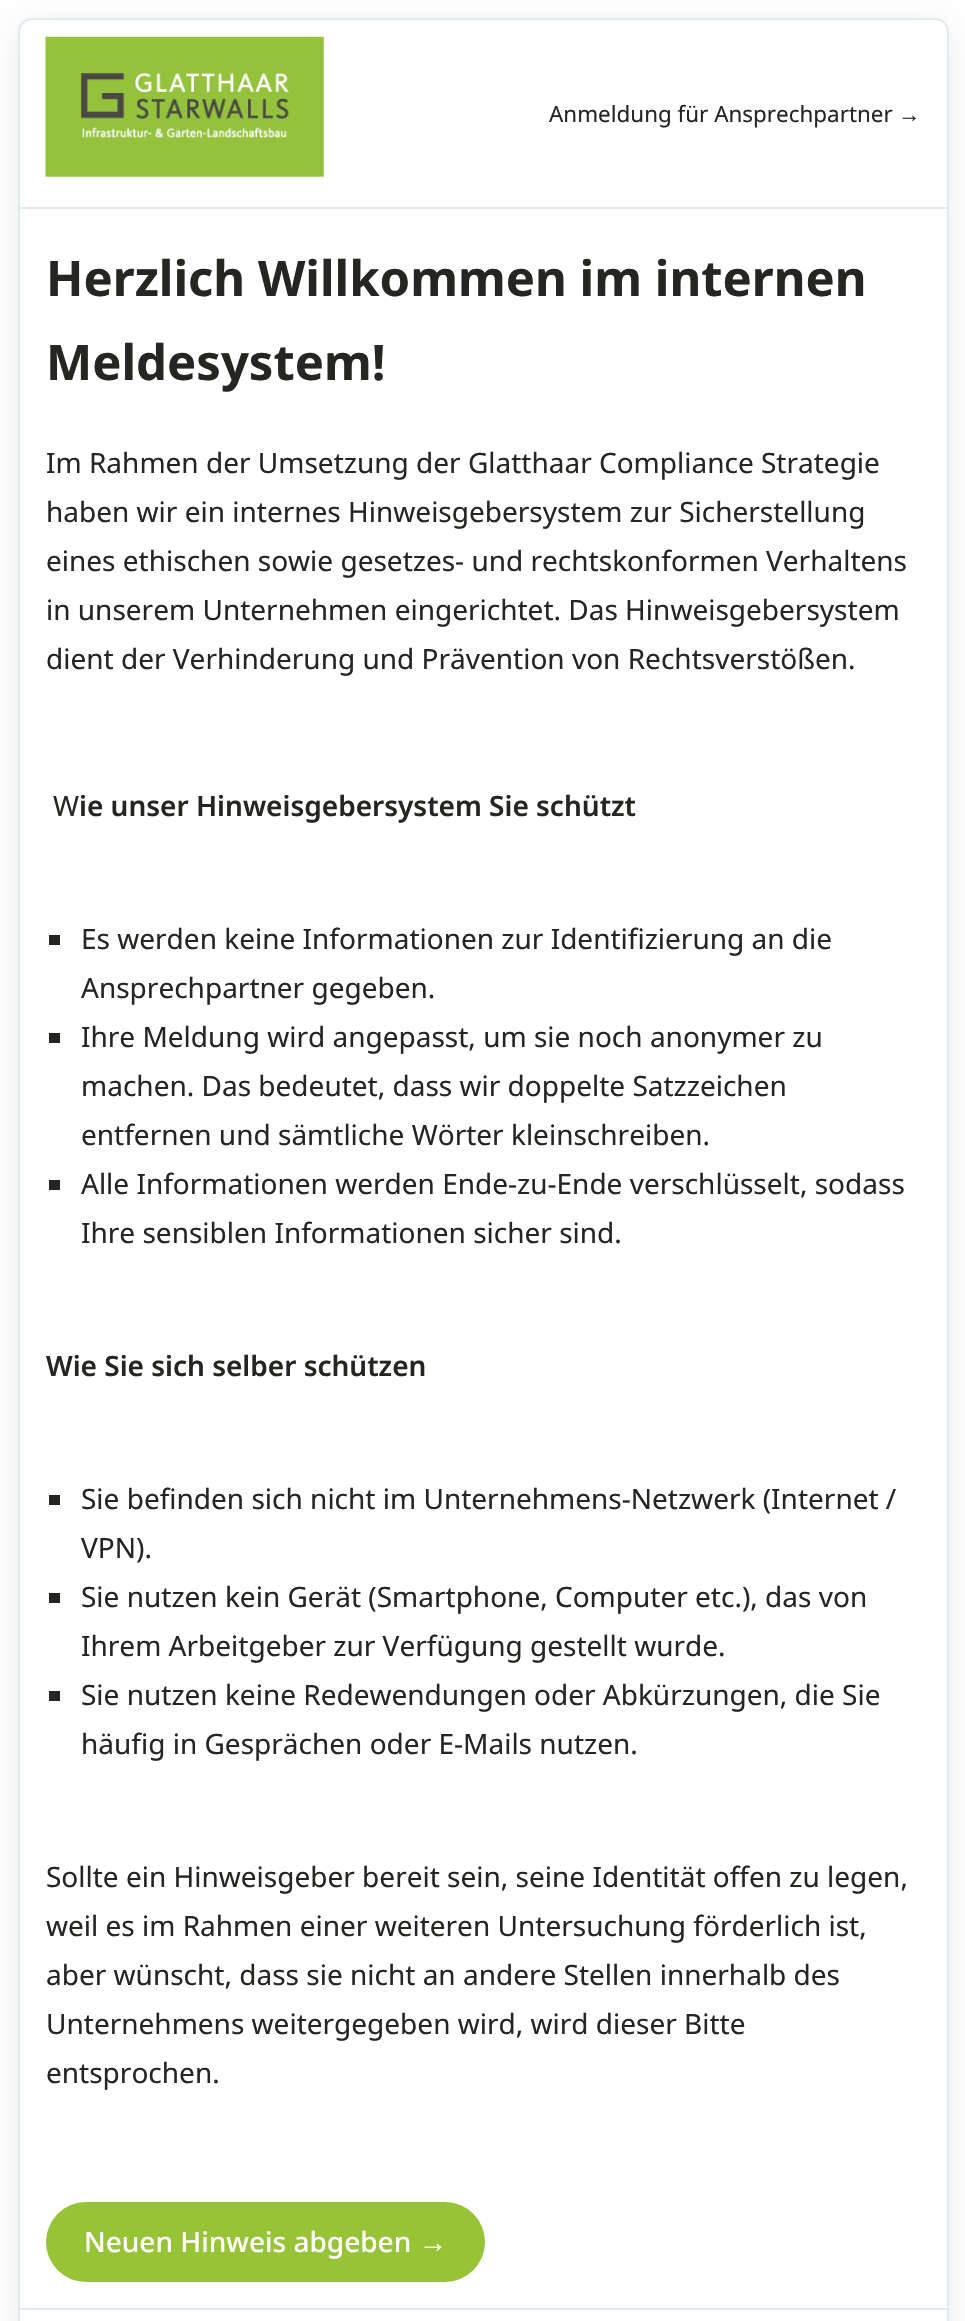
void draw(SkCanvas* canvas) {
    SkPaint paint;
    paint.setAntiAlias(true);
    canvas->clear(0xFFFFFFFF);
    paint.setColor(0x14000000);
    paint.setMaskFilter(SkMaskFilter::MakeBlur(kNormal_SkBlurStyle, 17.5f));
    canvas->drawRoundRect(SkRect::MakeXYWH(18, 26, 931, 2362), 14, 14, paint);
    paint.setMaskFilter(nullptr);
    paint.setColor(0xFFFFFFFF);
    canvas->drawRoundRect(SkRect::MakeXYWH(19, 19, 929, 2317), 13, 13, paint);
    paint.setStyle(SkPaint::kStroke_Style);
    paint.setStrokeWidth(2);
    paint.setColor(0xFFE1EAF2);
    canvas->drawRoundRect(SkRect::MakeXYWH(19, 19, 929, 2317), 13, 13, paint);
    paint.setStyle(SkPaint::kFill_Style);
    canvas->drawRect(SkRect::MakeXYWH(19, 207, 928, 2), paint);
    canvas->drawImageRect(SkImages::DeferredFromEncodedData(SkData::MakeFromFileName("img1.png")), SkRect::MakeXYWH(45, 36, 279, 141), SkSamplingOptions());
    SkFont font1(fontMgr->matchFamilyStyle("Noto Sans", SkFontStyle::Normal()), 22.4f);
    font1.setSubpixel(true);
    paint.setColor(0xFF252522);
    canvas->drawString("Anmeldung für Ansprechpartner", 549, 122, font1, paint);
    SkFont font2(fontMgr->matchFamilyStyle("Liberation Sans", SkFontStyle::Normal()), 22.4f);
    font2.setSubpixel(true);
    canvas->drawString("→", 898, 122, font2, paint);
    SkFont font3(fontMgr->matchFamilyStyle("Noto Sans", SkFontStyle::Bold()), 49);
    font3.setSubpixel(true);
    canvas->drawString("Herzlich Willkommen im internen", 46, 296, font3, paint);
    canvas->drawString("Meldesystem!", 46, 380, font3, paint);
    SkFont font4(fontMgr->matchFamilyStyle("Noto Sans", SkFontStyle::Normal()), 28);
    font4.setSubpixel(true);
    canvas->drawString("Im Rahmen der Umsetzung der Glatthaar Compliance Strategie", 46, 473, font4, paint);
    canvas->drawString("haben wir ein internes Hinweisgebersystem zur Sicherstellung", 46, 522, font4, paint);
    canvas->drawString("eines ethischen sowie gesetzes- und rechtskonformen Verhaltens", 46, 571, font4, paint);
    canvas->drawString("in unserem Unternehmen eingerichtet. Das Hinweisgebersystem", 46, 620, font4, paint);
    canvas->drawString("dient der Verhinderung und Prävention von Rechtsverstößen.", 46, 669, font4, paint);
    canvas->drawString("W", 53, 816, font4, paint);
    SkFont font5(fontMgr->matchFamilyStyle("Noto Sans", SkFontStyle(600, SkFontStyle::kNormal_Width, SkFontStyle::kUpright_Slant)), 28);
    font5.setSubpixel(true);
    canvas->drawString("ie unser Hinweisgebersystem Sie schützt", 79, 816, font5, paint);
    canvas->drawRect(SkRect::MakeXYWH(49, 935, 11, 10), paint);
    canvas->drawString("Es werden keine Informationen zur Identifizierung an die", 81, 949, font4, paint);
    canvas->drawString("Ansprechpartner gegeben.", 81, 998, font4, paint);
    canvas->drawRect(SkRect::MakeXYWH(49, 1033, 11, 10), paint);
    canvas->drawString("Ihre Meldung wird angepasst, um sie noch anonymer zu", 81, 1047, font4, paint);
    canvas->drawString("machen. Das bedeutet, dass wir doppelte Satzzeichen", 81, 1096, font4, paint);
    canvas->drawString("entfernen und sämtliche Wörter kleinschreiben.", 81, 1145, font4, paint);
    canvas->drawRect(SkRect::MakeXYWH(49, 1180, 11, 10), paint);
    canvas->drawString("Alle Informationen werden Ende-zu-Ende verschlüsselt, sodass", 81, 1194, font4, paint);
    canvas->drawString("Ihre sensiblen Informationen sicher sind.", 81, 1243, font4, paint);
    canvas->drawString("Wie Sie sich selber schützen", 46, 1376, font5, paint);
    canvas->drawRect(SkRect::MakeXYWH(49, 1495, 11, 10), paint);
    canvas->drawString("Sie befinden sich nicht im Unternehmens-Netzwerk (Internet /", 81, 1509, font4, paint);
    canvas->drawString("VPN).", 81, 1558, font4, paint);
    canvas->drawRect(SkRect::MakeXYWH(49, 1593, 11, 10), paint);
    canvas->drawString("Sie nutzen kein Gerät (Smartphone, Computer etc.), das von", 81, 1607, font4, paint);
    canvas->drawString("Ihrem Arbeitgeber zur Verfügung gestellt wurde.", 81, 1656, font4, paint);
    canvas->drawRect(SkRect::MakeXYWH(49, 1691, 11, 10), paint);
    canvas->drawString("Sie nutzen keine Redewendungen oder Abkürzungen, die Sie", 81, 1705, font4, paint);
    canvas->drawString("häufig in Gesprächen oder E-Mails nutzen.", 81, 1754, font4, paint);
    canvas->drawString("Sollte ein Hinweisgeber bereit sein, seine Identität offen zu legen,", 46, 1887, font4, paint);
    canvas->drawString("weil es im Rahmen einer weiteren Untersuchung förderlich ist,", 46, 1936, font4, paint);
    canvas->drawString("aber wünscht, dass sie nicht an andere Stellen innerhalb des", 46, 1985, font4, paint);
    canvas->drawString("Unternehmens weitergegeben wird, wird dieser Bitte", 46, 2034, font4, paint);
    canvas->drawString("entsprochen.", 46, 2083, font4, paint);
    paint.setColor(0xFF97C337);
    canvas->drawRoundRect(SkRect::MakeXYWH(46, 2202, 439, 80), 40, 40, paint);
    SkFont font6(fontMgr->matchFamilyStyle("Noto Sans", SkFontStyle(500, SkFontStyle::kNormal_Width, SkFontStyle::kUpright_Slant)), 28);
    font6.setSubpixel(true);
    paint.setColor(0xFFFFFFFF);
    canvas->drawString("Neuen Hinweis abgeben", 84, 2252, font6, paint);
    SkFont font7(fontMgr->matchFamilyStyle("Liberation Sans", SkFontStyle::Normal()), 28);
    font7.setSubpixel(true);
    canvas->drawString("→", 419, 2252, font7, paint);
    paint.setColor(0xFFE1EAF2);
    canvas->drawRect(SkRect::MakeXYWH(19, 2308, 928, 2), paint);
}
